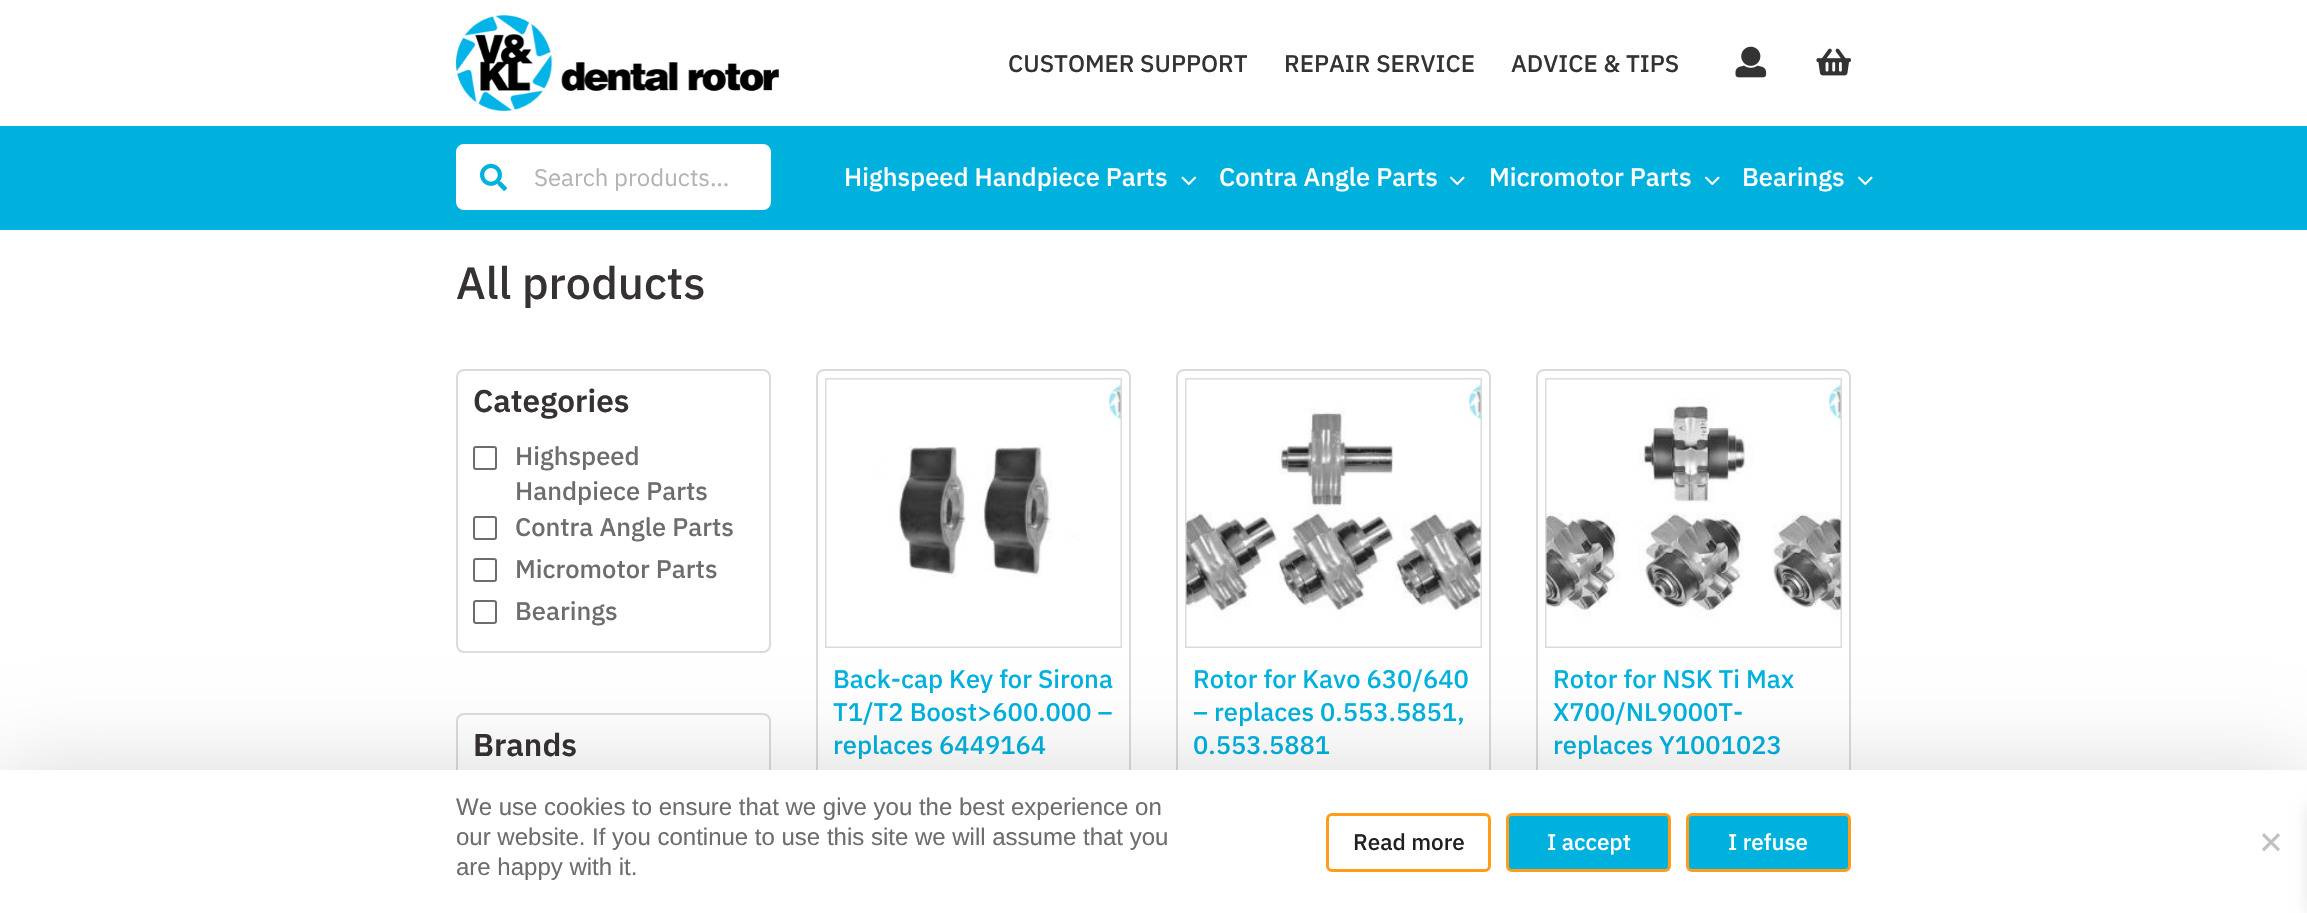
void draw(SkCanvas* canvas) {
    SkPaint paint;
    paint.setAntiAlias(true);
    canvas->clear(0xFFFFFFFF);
    canvas->drawImageRect(SkImages::DeferredFromEncodedData(SkData::MakeFromFileName("img1.png")), SkRect::MakeXYWH(456, 15, 323, 96), SkSamplingOptions());
    SkFont font1(fontMgr->matchFamilyStyle("IBM Plex Sans", SkFontStyle(500, SkFontStyle::kNormal_Width, SkFontStyle::kUpright_Slant)), 24);
    font1.setSubpixel(true);
    paint.setColor(0xFF363233);
    canvas->drawString("CUSTOMER SUPPORT", 1008, 72, font1, paint);
    canvas->drawString("REPAIR SERVICE", 1284, 72, font1, paint);
    canvas->drawString("ADVICE & TIPS", 1511, 72, font1, paint);
    canvas->drawImageRect(SkImages::DeferredFromEncodedData(SkData::MakeFromFileName("img2.png")), SkRect::MakeXYWH(1735, 46, 32, 32), SkSamplingOptions());
    canvas->drawImageRect(SkImages::DeferredFromEncodedData(SkData::MakeFromFileName("img3.png")), SkRect::MakeXYWH(1816, 48, 35, 28), SkSamplingOptions());
    paint.setColor(0xFF00B1DE);
    canvas->drawRect(SkRect::MakeXYWH(0, 126, 2307, 104), paint);
    paint.setColor(0xFFFFFFFF);
    canvas->drawRoundRect(SkRect::MakeXYWH(457.5f, 145.5f, 312, 63), 6.5f, 6.5f, paint);
    paint.setStyle(SkPaint::kStroke_Style);
    paint.setStrokeWidth(3);
    canvas->drawRoundRect(SkRect::MakeXYWH(457.5f, 145.5f, 312, 63), 6.5f, 6.5f, paint);
    canvas->drawImageRect(SkImages::DeferredFromEncodedData(SkData::MakeFromFileName("img4.png")), SkRect::MakeXYWH(480, 163, 27, 28), SkSamplingOptions());
    SkFont font2(fontMgr->matchFamilyStyle("IBM Plex Sans", SkFontStyle::Normal()), 24);
    font2.setSubpixel(true);
    paint.setStyle(SkPaint::kFill_Style);
    paint.setColor(0xFFB3B3B3);
    canvas->drawString("Search products…", 534, 186, font2, paint);
    SkFont font3(fontMgr->matchFamilyStyle("IBM Plex Sans", SkFontStyle(500, SkFontStyle::kNormal_Width, SkFontStyle::kUpright_Slant)), 25.5f);
    font3.setSubpixel(true);
    paint.setColor(0xFFFFFFFF);
    canvas->drawString("Highspeed Handpiece Parts", 844, 186, font3, paint);
    canvas->drawImageRect(SkImages::DeferredFromEncodedData(SkData::MakeFromFileName("img5.png")), SkRect::MakeXYWH(1181, 176, 15, 9), SkSamplingOptions());
    canvas->drawString("Contra Angle Parts", 1219, 186, font3, paint);
    canvas->drawImageRect(SkImages::DeferredFromEncodedData(SkData::MakeFromFileName("img6.png")), SkRect::MakeXYWH(1450, 176, 15, 9), SkSamplingOptions());
    canvas->drawString("Micromotor Parts", 1489, 186, font3, paint);
    canvas->drawImageRect(SkImages::DeferredFromEncodedData(SkData::MakeFromFileName("img6.png")), SkRect::MakeXYWH(1705, 176, 15, 9), SkSamplingOptions());
    canvas->drawString("Bearings", 1742, 186, font3, paint);
    canvas->drawImageRect(SkImages::DeferredFromEncodedData(SkData::MakeFromFileName("img6.png")), SkRect::MakeXYWH(1858, 176, 15, 9), SkSamplingOptions());
    SkFont font4(fontMgr->matchFamilyStyle("IBM Plex Sans", SkFontStyle(500, SkFontStyle::kNormal_Width, SkFontStyle::kUpright_Slant)), 45);
    font4.setSubpixel(true);
    paint.setColor(0xFF363233);
    canvas->drawString("All products", 456, 299, font4, paint);
    paint.setStyle(SkPaint::kStroke_Style);
    paint.setStrokeWidth(2);
    paint.setColor(0xFFDBDBDB);
    canvas->drawRoundRect(SkRect::MakeXYWH(457, 370, 313, 282), 7, 7, paint);
    SkFont font5(fontMgr->matchFamilyStyle("IBM Plex Sans", SkFontStyle(600, SkFontStyle::kNormal_Width, SkFontStyle::kUpright_Slant)), 31.5f);
    font5.setSubpixel(true);
    paint.setStyle(SkPaint::kFill_Style);
    paint.setColor(0xFF363233);
    canvas->drawString("Categories", 473, 412, font5, paint);
    paint.setStyle(SkPaint::kStroke_Style);
    paint.setColor(0xFF6D6D6D);
    canvas->drawRoundRect(SkRect::MakeXYWH(474, 447, 22, 22), 2, 2, paint);
    paint.setStyle(SkPaint::kFill_Style);
    canvas->drawString("Highspeed", 515, 465, font3, paint);
    canvas->drawString("Handpiece Parts", 515, 500, font3, paint);
    paint.setStyle(SkPaint::kStroke_Style);
    canvas->drawRoundRect(SkRect::MakeXYWH(474, 517, 22, 22), 2, 2, paint);
    paint.setStyle(SkPaint::kFill_Style);
    canvas->drawString("Contra Angle Parts", 515, 536, font3, paint);
    paint.setStyle(SkPaint::kStroke_Style);
    canvas->drawRoundRect(SkRect::MakeXYWH(474, 559, 22, 22), 2, 2, paint);
    paint.setStyle(SkPaint::kFill_Style);
    canvas->drawString("Micromotor Parts", 515, 578, font3, paint);
    paint.setStyle(SkPaint::kStroke_Style);
    canvas->drawRoundRect(SkRect::MakeXYWH(474, 601, 22, 22), 2, 2, paint);
    paint.setStyle(SkPaint::kFill_Style);
    canvas->drawString("Bearings", 515, 620, font3, paint);
    paint.setStyle(SkPaint::kStroke_Style);
    paint.setColor(0xFFDBDBDB);
    canvas->drawRoundRect(SkRect::MakeXYWH(457, 714, 313, 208), 7, 7, paint);
    paint.setStyle(SkPaint::kFill_Style);
    paint.setColor(0xFF363233);
    canvas->drawString("Brands", 473, 756, font5, paint);
    paint.setStyle(SkPaint::kStroke_Style);
    paint.setColor(0xFFDBDBDB);
    canvas->drawRoundRect(SkRect::MakeXYWH(817, 370, 313, 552), 7, 7, paint);
    canvas->drawRect(SkRect::MakeXYWH(826, 379, 295, 268), paint);
    canvas->drawImageRect(SkImages::DeferredFromEncodedData(SkData::MakeFromFileName("img7.png")), SkRect::MakeXYWH(826, 379, 295, 268), SkSamplingOptions());
    paint.setStyle(SkPaint::kFill_Style);
    paint.setColor(0xFF00B1DE);
    canvas->drawString("Back-cap Key for Sirona", 833, 688, font3, paint);
    canvas->drawString("T1/T2 Boost>600.000 –", 833, 721, font3, paint);
    canvas->drawString("replaces 6449164", 833, 754, font3, paint);
    paint.setStyle(SkPaint::kStroke_Style);
    paint.setColor(0xFFDBDBDB);
    canvas->drawRoundRect(SkRect::MakeXYWH(1177, 370, 313, 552), 7, 7, paint);
    canvas->drawRect(SkRect::MakeXYWH(1186, 379, 295, 268), paint);
    canvas->drawImageRect(SkImages::DeferredFromEncodedData(SkData::MakeFromFileName("img8.png")), SkRect::MakeXYWH(1186, 379, 295, 268), SkSamplingOptions());
    paint.setStyle(SkPaint::kFill_Style);
    paint.setColor(0xFF00B1DE);
    canvas->drawString("Rotor for Kavo 630/640", 1193, 688, font3, paint);
    canvas->drawString("– replaces 0.553.5851,", 1193, 721, font3, paint);
    canvas->drawString("0.553.5881", 1193, 754, font3, paint);
    paint.setStyle(SkPaint::kStroke_Style);
    paint.setColor(0xFFDBDBDB);
    canvas->drawRoundRect(SkRect::MakeXYWH(1537, 370, 313, 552), 7, 7, paint);
    canvas->drawRect(SkRect::MakeXYWH(1546, 379, 295, 268), paint);
    canvas->drawImageRect(SkImages::DeferredFromEncodedData(SkData::MakeFromFileName("img9.png")), SkRect::MakeXYWH(1546, 379, 295, 268), SkSamplingOptions());
    paint.setStyle(SkPaint::kFill_Style);
    paint.setColor(0xFF00B1DE);
    canvas->drawString("Rotor for NSK Ti Max", 1553, 688, font3, paint);
    canvas->drawString("X700/NL9000T-", 1553, 721, font3, paint);
    canvas->drawString("replaces Y1001023", 1553, 754, font3, paint);
    paint.setColor(0x26000000);
    paint.setMaskFilter(SkMaskFilter::MakeBlur(kNormal_SkBlurStyle, 45));
    canvas->drawRect(SkRect::MakeXYWH(0, 770, 2307, 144), paint);
    paint.setMaskFilter(nullptr);
    paint.setColor(0xFFFFFFFF);
    canvas->drawRect(SkRect::MakeXYWH(0, 770, 2307, 143), paint);
    SkFont font6(fontMgr->matchFamilyStyle("Liberation Sans", SkFontStyle::Normal()), 24);
    font6.setSubpixel(true);
    paint.setColor(0xFF6D6D6D);
    canvas->drawString("We use cookies to ensure that we give you the best experience on", 456, 815, font6, paint);
    canvas->drawString("our website. If you continue to use this site we will assume that you", 456, 845, font6, paint);
    canvas->drawString("are happy with it.", 456, 875, font6, paint);
    paint.setStyle(SkPaint::kStroke_Style);
    paint.setStrokeWidth(3);
    paint.setColor(0xFFFF9D1B);
    canvas->drawRoundRect(SkRect::MakeXYWH(1327.5f, 814.5f, 162, 56), 4.5f, 4.5f, paint);
    SkFont font7(fontMgr->matchFamilyStyle("IBM Plex Sans", SkFontStyle(500, SkFontStyle::kNormal_Width, SkFontStyle::kUpright_Slant)), 22.5f);
    font7.setSubpixel(true);
    paint.setStyle(SkPaint::kFill_Style);
    paint.setColor(0xFF231F20);
    canvas->drawString("Read more", 1353, 850, font7, paint);
    paint.setColor(0xFF00B1DE);
    canvas->drawRoundRect(SkRect::MakeXYWH(1507.5f, 814.5f, 162, 56), 4.5f, 4.5f, paint);
    paint.setStyle(SkPaint::kStroke_Style);
    paint.setColor(0xFFFF9D1B);
    canvas->drawRoundRect(SkRect::MakeXYWH(1507.5f, 814.5f, 162, 56), 4.5f, 4.5f, paint);
    paint.setStyle(SkPaint::kFill_Style);
    paint.setColor(0xFFFFFFFF);
    canvas->drawString("I accept", 1547, 850, font7, paint);
    paint.setColor(0xFF00B1DE);
    canvas->drawRoundRect(SkRect::MakeXYWH(1687.5f, 814.5f, 162, 56), 4.5f, 4.5f, paint);
    paint.setStyle(SkPaint::kStroke_Style);
    paint.setColor(0xFFFF9D1B);
    canvas->drawRoundRect(SkRect::MakeXYWH(1687.5f, 814.5f, 162, 56), 4.5f, 4.5f, paint);
    paint.setStyle(SkPaint::kFill_Style);
    paint.setColor(0xFFFFFFFF);
    canvas->drawString("I refuse", 1728, 850, font7, paint);
    paint.setColor(0xFFC0C0C0);
    canvas->drawPath(SkPathBuilder().moveTo(2278, 833).lineTo(2280, 835.5f).lineTo(2264, 851.5f).lineTo(2262, 849).close().detach(), paint);
    canvas->drawPath(SkPathBuilder().moveTo(2262, 835.5f).lineTo(2264, 833).lineTo(2280, 849).lineTo(2278, 851.5f).close().detach(), paint);
    paint.setColor(0x1A000000);
    paint.setMaskFilter(SkMaskFilter::MakeBlur(kNormal_SkBlurStyle, 7.5f));
    canvas->drawRect(SkRect::MakeXYWH(2307, 807, 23, 105), paint);
    paint.setMaskFilter(nullptr);
}
